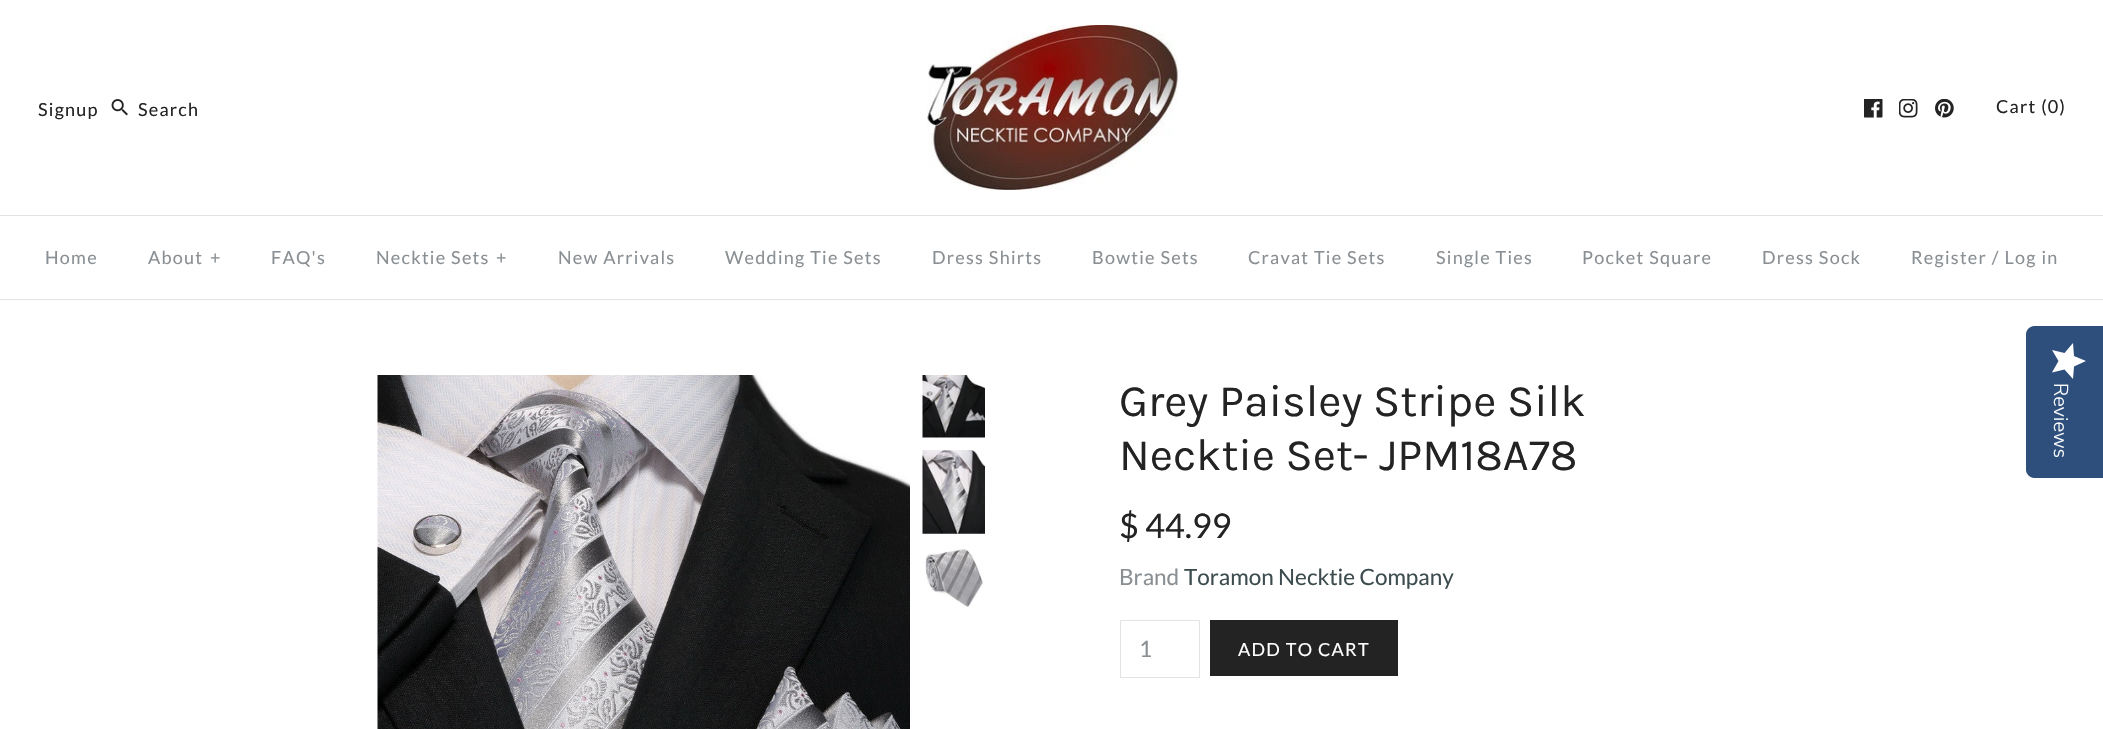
void draw(SkCanvas* canvas) {
    SkPaint paint;
    paint.setAntiAlias(true);
    auto spacedText = [&](const char* s, float x, float y, const SkFont& font, const SkPaint& ink, float letter, float word) {
        std::vector<SkGlyphID> glyphs(font.countText(s, strlen(s), SkTextEncoding::kUTF8));
        std::vector<float> xs(glyphs.size());
        font.textToGlyphs(s, strlen(s), SkTextEncoding::kUTF8, glyphs);
        font.getXPos(glyphs, xs, x);
        float extra = 0;
        for (size_t i = 0; i < glyphs.size(); i++) {
            xs[i] += extra;
            extra += letter + word * (glyphs[i] == font.unicharToGlyph(' '));
        }
        canvas->drawTextBlob(SkTextBlob::MakeFromPosHGlyphs(glyphs, xs, y, font), 0, 0, ink);
    };
    canvas->clear(0xFFFFFFFF);
    canvas->drawImageRect(SkImages::DeferredFromEncodedData(SkData::MakeFromFileName("img1.png")), SkRect::MakeXYWH(927, 25, 251, 165), SkSamplingOptions());
    SkFont font1(fontMgr->matchFamilyStyle("Lato", SkFontStyle::Normal()), 18);
    font1.setSubpixel(true);
    paint.setColor(0xFF232323);
    spacedText("Signup", 38, 116, font1, paint, 1.25f, 0);
    canvas->drawImageRect(SkImages::DeferredFromEncodedData(SkData::MakeFromFileName("img2.png")), SkRect::MakeXYWH(111, 99, 17, 17), SkSamplingOptions());
    spacedText("Search", 138, 116, font1, paint, 1.25f, 0);
    canvas->drawImageRect(SkImages::DeferredFromEncodedData(SkData::MakeFromFileName("img3.png")), SkRect::MakeXYWH(1864, 99, 19, 19), SkSamplingOptions());
    canvas->drawImageRect(SkImages::DeferredFromEncodedData(SkData::MakeFromFileName("img4.png")), SkRect::MakeXYWH(1899, 99, 19, 19), SkSamplingOptions());
    canvas->drawImageRect(SkImages::DeferredFromEncodedData(SkData::MakeFromFileName("img5.png")), SkRect::MakeXYWH(1935, 99, 19, 19), SkSamplingOptions());
    spacedText("Cart (0)", 1996, 113, font1, paint, 1.25f, 0);
    paint.setColor(0xFFE2E2E2);
    canvas->drawRect(SkRect::MakeXYWH(0, 299, 2103, 1), paint);
    canvas->drawRect(SkRect::MakeXYWH(0, 215, 2103, 1), paint);
    paint.setColor(0xFF8A8F93);
    spacedText("Home", 45, 264, font1, paint, 1.25f, 0);
    spacedText("About", 148, 264, font1, paint, 1.25f, 0);
    spacedText("+", 210, 264, font1, paint, 1.25f, 0);
    spacedText("FAQ's", 271, 264, font1, paint, 1.25f, 0);
    spacedText("Necktie Sets", 376, 264, font1, paint, 1.25f, 0);
    spacedText("+", 496, 264, font1, paint, 1.25f, 0);
    spacedText("New Arrivals", 558, 264, font1, paint, 1.25f, 0);
    spacedText("Wedding Tie Sets", 725, 264, font1, paint, 1.25f, 0);
    spacedText("Dress Shirts", 932, 264, font1, paint, 1.25f, 0);
    spacedText("Bowtie Sets", 1092, 264, font1, paint, 1.25f, 0);
    spacedText("Cravat Tie Sets", 1248, 264, font1, paint, 1.25f, 0);
    spacedText("Single Ties", 1436, 264, font1, paint, 1.25f, 0);
    spacedText("Pocket Square", 1582, 264, font1, paint, 1.25f, 0);
    spacedText("Dress Sock", 1762, 264, font1, paint, 1.25f, 0);
    spacedText("Register / Log in", 1911, 264, font1, paint, 1.25f, 0);
    canvas->drawImageRect(SkImages::DeferredFromEncodedData(SkData::MakeFromFileName("img6.png")), SkRect::MakeXYWH(377, 375, 533, 354), SkSamplingOptions());
    canvas->drawImageRect(SkImages::DeferredFromEncodedData(SkData::MakeFromFileName("img7.png")), SkRect::MakeXYWH(922, 375, 63, 63), SkSamplingOptions());
    canvas->drawImageRect(SkImages::DeferredFromEncodedData(SkData::MakeFromFileName("img8.png")), SkRect::MakeXYWH(922, 450, 63, 84), SkSamplingOptions());
    canvas->drawImageRect(SkImages::DeferredFromEncodedData(SkData::MakeFromFileName("img9.png")), SkRect::MakeXYWH(924, 546, 59, 61), SkSamplingOptions());
    SkFont font2(fontMgr->matchFamilyStyle("Karla", SkFontStyle::Normal()), 45);
    font2.setSubpixel(true);
    paint.setColor(0xFF232323);
    canvas->drawString("Grey Paisley Stripe Silk", 1119, 416, font2, paint);
    canvas->drawString("Necktie Set- JPM18A78", 1119, 470, font2, paint);
    SkFont font3(fontMgr->matchFamilyStyle("Lato", SkFontStyle::Normal()), 34);
    font3.setSubpixel(true);
    canvas->drawString("$ 44.99", 1119, 538, font3, paint);
    SkFont font4(fontMgr->matchFamilyStyle("Lato", SkFontStyle::Normal()), 22.5f);
    font4.setSubpixel(true);
    paint.setColor(0xFF8A8F93);
    canvas->drawString("Brand", 1119, 585, font4, paint);
    paint.setColor(0xFF3D4C4F);
    canvas->drawString("Toramon Necktie Company", 1184, 585, font4, paint);
    paint.setStyle(SkPaint::kStroke_Style);
    paint.setStrokeWidth(1);
    paint.setColor(0xFFE1E3E4);
    canvas->drawRect(SkRect::MakeXYWH(1120.5f, 620.5f, 79, 57), paint);
    paint.setStyle(SkPaint::kFill_Style);
    paint.setColor(0xFF8A8F93);
    canvas->drawString("1", 1139, 657, font4, paint);
    paint.setColor(0xFF232323);
    canvas->drawRect(SkRect::MakeXYWH(1210, 620, 188, 56), paint);
    paint.setColor(0xFFFFFFFF);
    spacedText("ADD TO CART", 1238, 656, font1, paint, 1.25f, 0);
    paint.setColor(0xFF2E4F7C);
    canvas->drawPath(SkPathBuilder().moveTo(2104, 326).lineTo(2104, 478).lineTo(2034, 478).cubicTo(2030, 478, 2026, 474, 2026, 470).lineTo(2026, 334).cubicTo(2026, 330, 2030, 326, 2034, 326).close().detach(), paint);
    {
        const SkColor colors[] = {0xFFFFFFFF, 0xFFEAEAEA};
        const float stops[] = {1, 1};
        const SkPoint ends[] = {{2086, 343}, {2086, 379}};
        paint.setShader(SkGradientShader::MakeLinear(ends, colors, stops, 2, SkTileMode::kClamp));
        paint.setAlpha(255);
    }
    canvas->drawPath(SkPathBuilder().moveTo(2058.5f, 361).lineTo(2052, 372.5f).lineTo(2064.5f, 369.5f).lineTo(2073, 379).lineTo(2074, 366.5f).lineTo(2086, 361).lineTo(2074, 356).lineTo(2073, 343).lineTo(2064.5f, 353).lineTo(2052, 350).close().detach(), paint);
    SkFont font5(fontMgr->matchFamilyStyle("Nunito Sans", SkFontStyle(300, SkFontStyle::kNormal_Width, SkFontStyle::kUpright_Slant)), 20);
    font5.setSubpixel(true);
    paint.setShader(nullptr);
    paint.setColor(0xFFFFFFFF);
    canvas->save();
    canvas->rotate(90, 2054, 383);
    canvas->drawString("Reviews", 2054, 383, font5, paint);
    canvas->restore();
}
